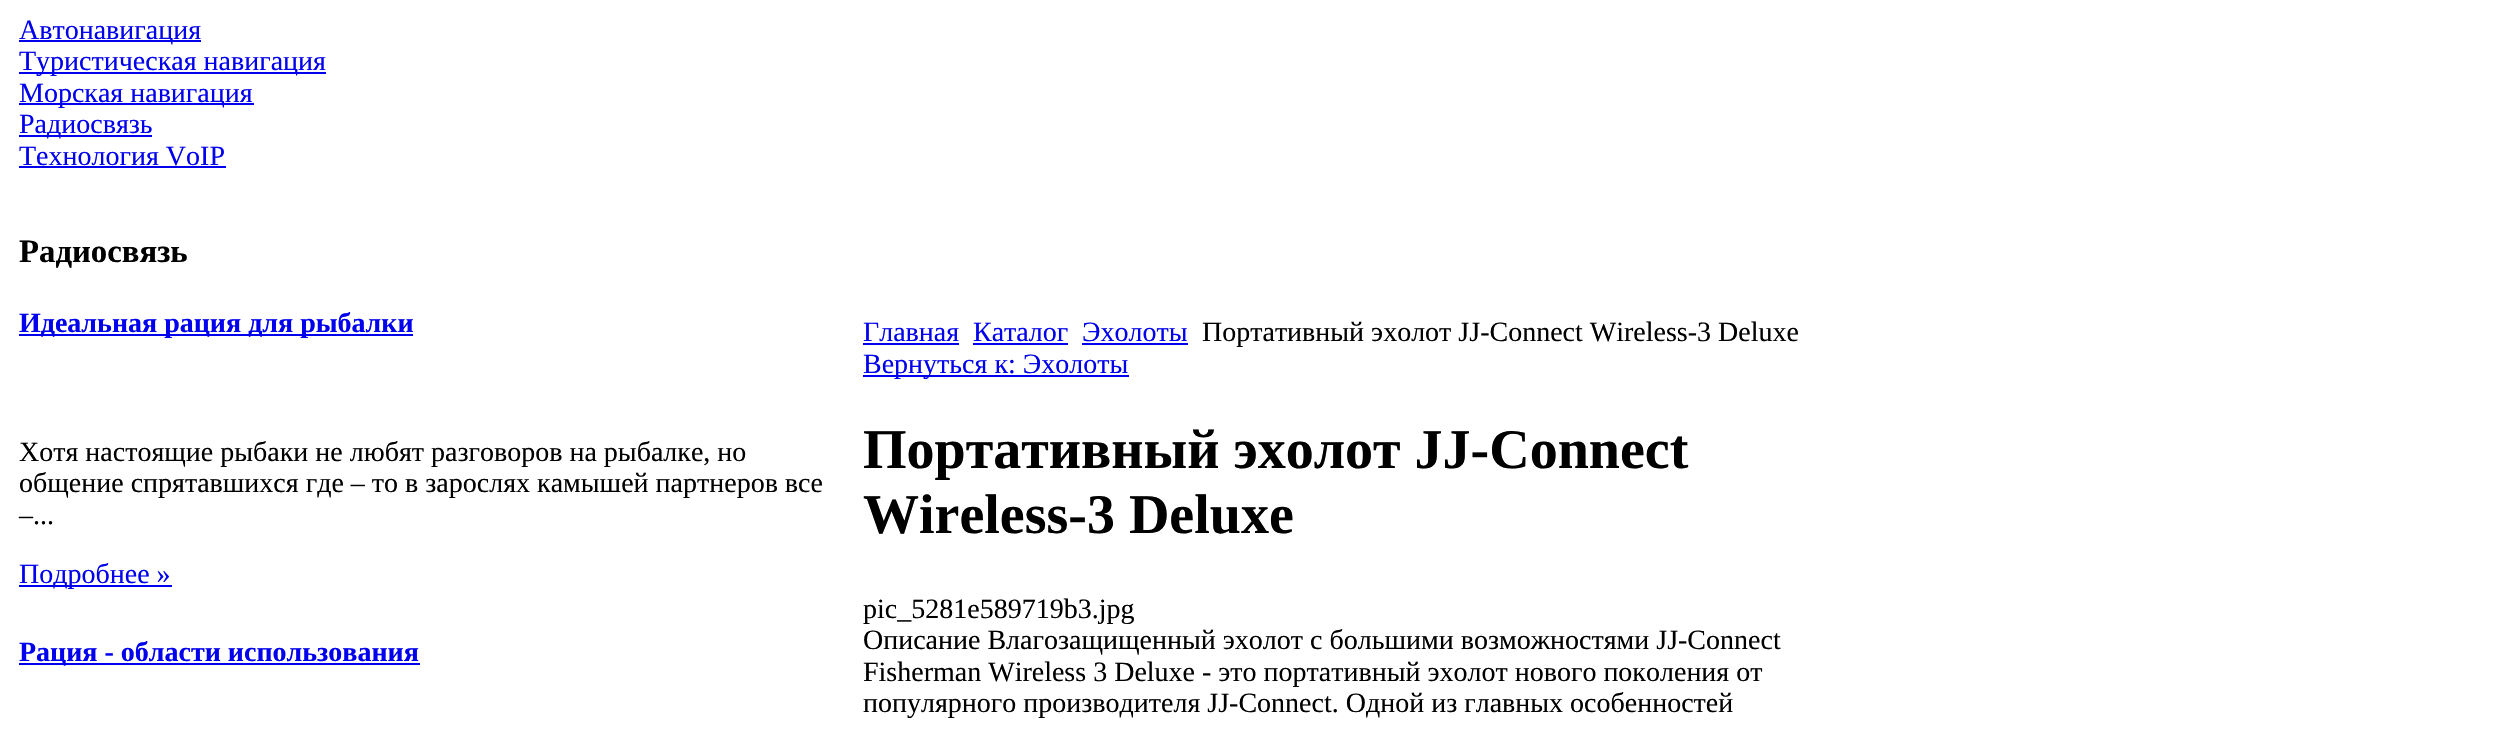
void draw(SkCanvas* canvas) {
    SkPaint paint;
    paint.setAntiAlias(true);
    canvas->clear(0xFFFFFFFF);
    paint.setColor(0xFF0000EE);
    canvas->drawRect(SkRect::MakeXYWH(19, 40, 182, 2), paint);
    SkFont font1(fontMgr->matchFamilyStyle("Liberation Serif", SkFontStyle::Normal()), 28);
    font1.setSubpixel(true);
    canvas->drawString("Автонавигация", 19, 39, font1, paint);
    canvas->drawRect(SkRect::MakeXYWH(19, 72, 307, 2), paint);
    canvas->drawString("Туристическая навигация", 19, 70, font1, paint);
    canvas->drawRect(SkRect::MakeXYWH(19, 103, 235, 2), paint);
    canvas->drawString("Морская навигация", 19, 102, font1, paint);
    canvas->drawRect(SkRect::MakeXYWH(19, 135, 133, 2), paint);
    canvas->drawString("Радиосвязь", 19, 133, font1, paint);
    canvas->drawString("Технология VoIP", 19, 165, font1, paint);
    canvas->drawRect(SkRect::MakeXYWH(19, 166, 207, 2), paint);
    SkFont font2(fontMgr->matchFamilyStyle("Liberation Serif", SkFontStyle::Bold()), 32.75f);
    font2.setSubpixel(true);
    paint.setColor(0xFF000000);
    canvas->drawString("Радиосвязь", 19, 262, font2, paint);
    paint.setColor(0xFF0000EE);
    canvas->drawRect(SkRect::MakeXYWH(19, 334, 394, 2), paint);
    SkFont font3(fontMgr->matchFamilyStyle("Liberation Serif", SkFontStyle::Bold()), 28);
    font3.setSubpixel(true);
    canvas->drawString("Идеальная рация для рыбалки", 19, 332, font3, paint);
    paint.setColor(0xFF000000);
    canvas->drawString("Хотя настоящие рыбаки не любят разговоров на рыбалке, но", 19, 461, font1, paint);
    canvas->drawString("общение спрятавшихся где – то в зарослях камышей партнеров все", 19, 492, font1, paint);
    canvas->drawString("–...", 19, 524, font1, paint);
    paint.setColor(0xFF0000EE);
    canvas->drawRect(SkRect::MakeXYWH(19, 585, 153, 2), paint);
    canvas->drawString("Подробнее »", 19, 583, font1, paint);
    canvas->drawRect(SkRect::MakeXYWH(19, 663, 401, 2), paint);
    canvas->drawString("Рация - области использования", 19, 661, font3, paint);
    canvas->drawString("Главная", 863, 341, font1, paint);
    canvas->drawRect(SkRect::MakeXYWH(863, 343, 96, 2), paint);
    canvas->drawString("Каталог", 973, 341, font1, paint);
    canvas->drawRect(SkRect::MakeXYWH(973, 343, 95, 2), paint);
    canvas->drawString("Эхолоты", 1082, 341, font1, paint);
    canvas->drawRect(SkRect::MakeXYWH(1082, 343, 106, 2), paint);
    paint.setColor(0xFF000000);
    canvas->drawString("Портативный эхолот JJ-Connect Wireless-3 Deluxe", 1202, 341, font1, paint);
    paint.setColor(0xFF0000EE);
    canvas->drawRect(SkRect::MakeXYWH(863, 375, 266, 2), paint);
    canvas->drawString("Вернуться к: Эхолоты", 863, 373, font1, paint);
    SkFont font4(fontMgr->matchFamilyStyle("Liberation Serif", SkFontStyle::Bold()), 56);
    font4.setSubpixel(true);
    paint.setColor(0xFF000000);
    canvas->drawString("Портативный эхолот JJ-Connect", 863, 468, font4, paint);
    canvas->drawString("Wireless-3 Deluxe", 863, 533, font4, paint);
    canvas->drawString("pic_5281e589719b3.jpg", 863, 618, font1, paint);
    canvas->drawString("Описание Влагозащищенный эхолот с большими возможностями JJ-Connect", 863, 649, font1, paint);
    canvas->drawString("Fisherman Wireless 3 Deluxe - это портативный эхолот нового поколения от", 863, 681, font1, paint);
    canvas->drawString("популярного производителя JJ-Connect. Одной из главных особенностей", 863, 712, font1, paint);
}
